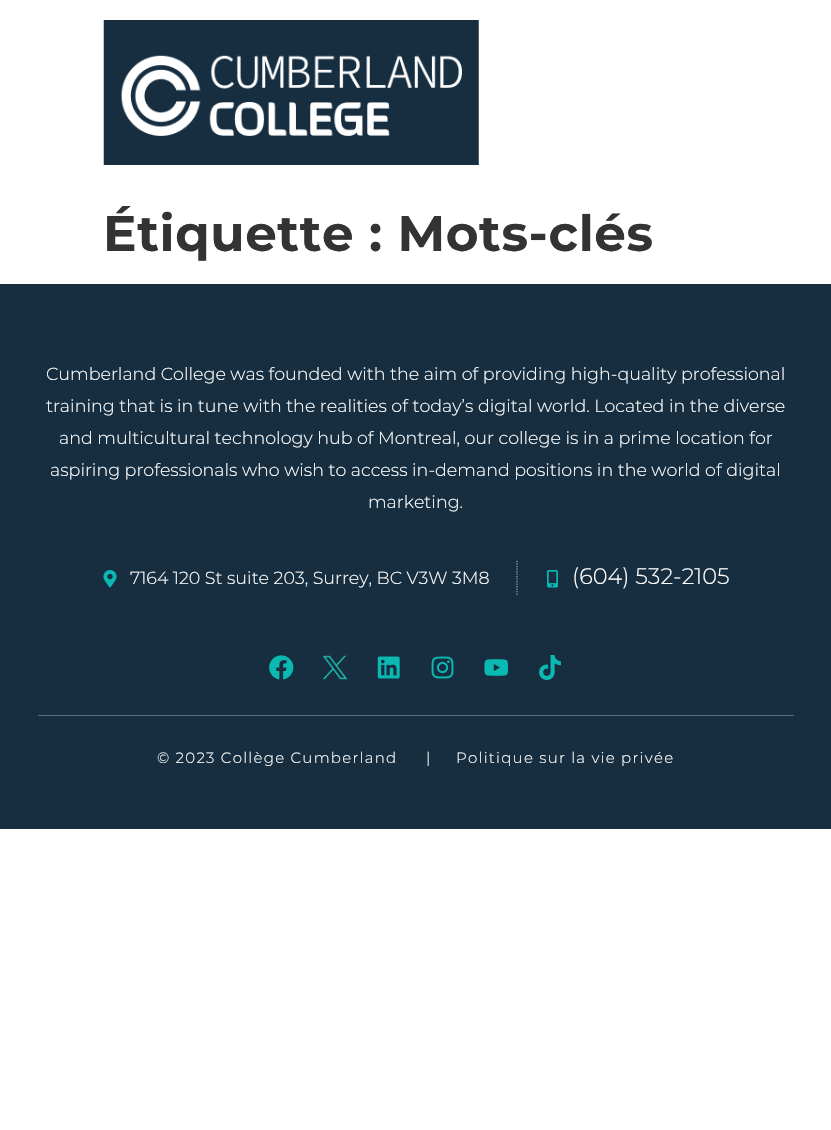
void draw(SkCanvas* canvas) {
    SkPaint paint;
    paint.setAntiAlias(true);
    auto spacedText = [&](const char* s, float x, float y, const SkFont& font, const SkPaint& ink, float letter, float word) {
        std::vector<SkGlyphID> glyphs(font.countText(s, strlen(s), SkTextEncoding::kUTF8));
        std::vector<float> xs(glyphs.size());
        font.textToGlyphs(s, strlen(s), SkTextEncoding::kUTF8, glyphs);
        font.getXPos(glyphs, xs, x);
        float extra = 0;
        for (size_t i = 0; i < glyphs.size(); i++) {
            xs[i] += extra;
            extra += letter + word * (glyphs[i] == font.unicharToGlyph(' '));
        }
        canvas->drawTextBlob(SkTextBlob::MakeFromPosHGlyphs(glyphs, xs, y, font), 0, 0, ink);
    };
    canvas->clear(0xFFFFFFFF);
    canvas->drawImageRect(SkImages::DeferredFromEncodedData(SkData::MakeFromFileName("img1.png")), SkRect::MakeXYWH(103, 20, 376, 145), SkSamplingOptions());
    SkFont font1(fontMgr->matchFamilyStyle("Montserrat", SkFontStyle::Bold()), 50);
    font1.setSubpixel(true);
    paint.setColor(0xFF333333);
    spacedText("Étiquette : Mots-clés", 103, 251, font1, paint, 0.6f, 0);
    paint.setColor(0xFF162E40);
    canvas->drawRect(SkRect::MakeXYWH(0, 284, 831, 545), paint);
    SkFont font2(fontMgr->matchFamilyStyle("Montserrat", SkFontStyle(300, SkFontStyle::kNormal_Width, SkFontStyle::kUpright_Slant)), 17.5f);
    font2.setSubpixel(true);
    paint.setColor(0xFFFFFFFF);
    canvas->drawString("Cumberland College was founded with the aim of providing high-quality professional", 46, 380, font2, paint);
    canvas->drawString("training that is in tune with the realities of today’s digital world. Located in the diverse", 46, 412, font2, paint);
    canvas->drawString("and multicultural technology hub of Montreal, our college is in a prime location for", 59, 444, font2, paint);
    canvas->drawString("aspiring professionals who wish to access in-demand positions in the world of digital", 50, 476, font2, paint);
    canvas->drawString("marketing.", 368, 508, font2, paint);
    canvas->drawImageRect(SkImages::DeferredFromEncodedData(SkData::MakeFromFileName("img2.png")), SkRect::MakeXYWH(103, 570, 14, 18), SkSamplingOptions());
    canvas->drawString("7164 120 St suite 203, Surrey, BC V3W 3M8", 130, 584, font2, paint);
    paint.setStyle(SkPaint::kStroke_Style);
    paint.setStrokeWidth(1.2f);
    paint.setColor(0xFFA5ACB1);
    paint.setPathEffect(SkDashPathEffect::Make({{1.25f, 1.25f}}, 0));
    canvas->drawPath(SkPathBuilder().moveTo(517, 561).lineTo(517, 595).detach(), paint);
    paint.setPathEffect(nullptr);
    canvas->drawImageRect(SkImages::DeferredFromEncodedData(SkData::MakeFromFileName("img3.png")), SkRect::MakeXYWH(547, 570, 11, 18), SkSamplingOptions());
    SkFont font3(fontMgr->matchFamilyStyle("Montserrat", SkFontStyle(300, SkFontStyle::kNormal_Width, SkFontStyle::kUpright_Slant)), 22.5f);
    font3.setSubpixel(true);
    paint.setStyle(SkPaint::kFill_Style);
    paint.setColor(0xFFFFFFFF);
    canvas->drawString("(604) 532-2105", 572, 584, font3, paint);
    canvas->drawImageRect(SkImages::DeferredFromEncodedData(SkData::MakeFromFileName("img4.png")), SkRect::MakeXYWH(269, 655, 25, 25), SkSamplingOptions());
    canvas->drawImageRect(SkImages::DeferredFromEncodedData(SkData::MakeFromFileName("img5.png")), SkRect::MakeXYWH(323, 655, 25, 25), SkSamplingOptions());
    canvas->drawImageRect(SkImages::DeferredFromEncodedData(SkData::MakeFromFileName("img6.png")), SkRect::MakeXYWH(377, 656, 23, 23), SkSamplingOptions());
    canvas->drawImageRect(SkImages::DeferredFromEncodedData(SkData::MakeFromFileName("img7.png")), SkRect::MakeXYWH(431, 656, 23, 23), SkSamplingOptions());
    canvas->drawImageRect(SkImages::DeferredFromEncodedData(SkData::MakeFromFileName("img8.png")), SkRect::MakeXYWH(484, 659, 25, 17), SkSamplingOptions());
    canvas->drawImageRect(SkImages::DeferredFromEncodedData(SkData::MakeFromFileName("img9.png")), SkRect::MakeXYWH(539, 655, 22, 25), SkSamplingOptions());
    paint.setColor(0xFF5C6D79);
    canvas->drawRect(SkRect::MakeXYWH(38, 715, 756, 1), paint);
    SkFont font4(fontMgr->matchFamilyStyle("Montserrat", SkFontStyle(300, SkFontStyle::kNormal_Width, SkFontStyle::kUpright_Slant)), 15);
    font4.setSubpixel(true);
    paint.setColor(0xFFFFFFFF);
    spacedText("© 2023 Collège Cumberland", 157, 763, font4, paint, 1.25f, 0);
    spacedText("|", 426, 763, font4, paint, 1.25f, 0);
    spacedText("Politique sur la vie privée", 456, 763, font4, paint, 1.25f, 0);
}
